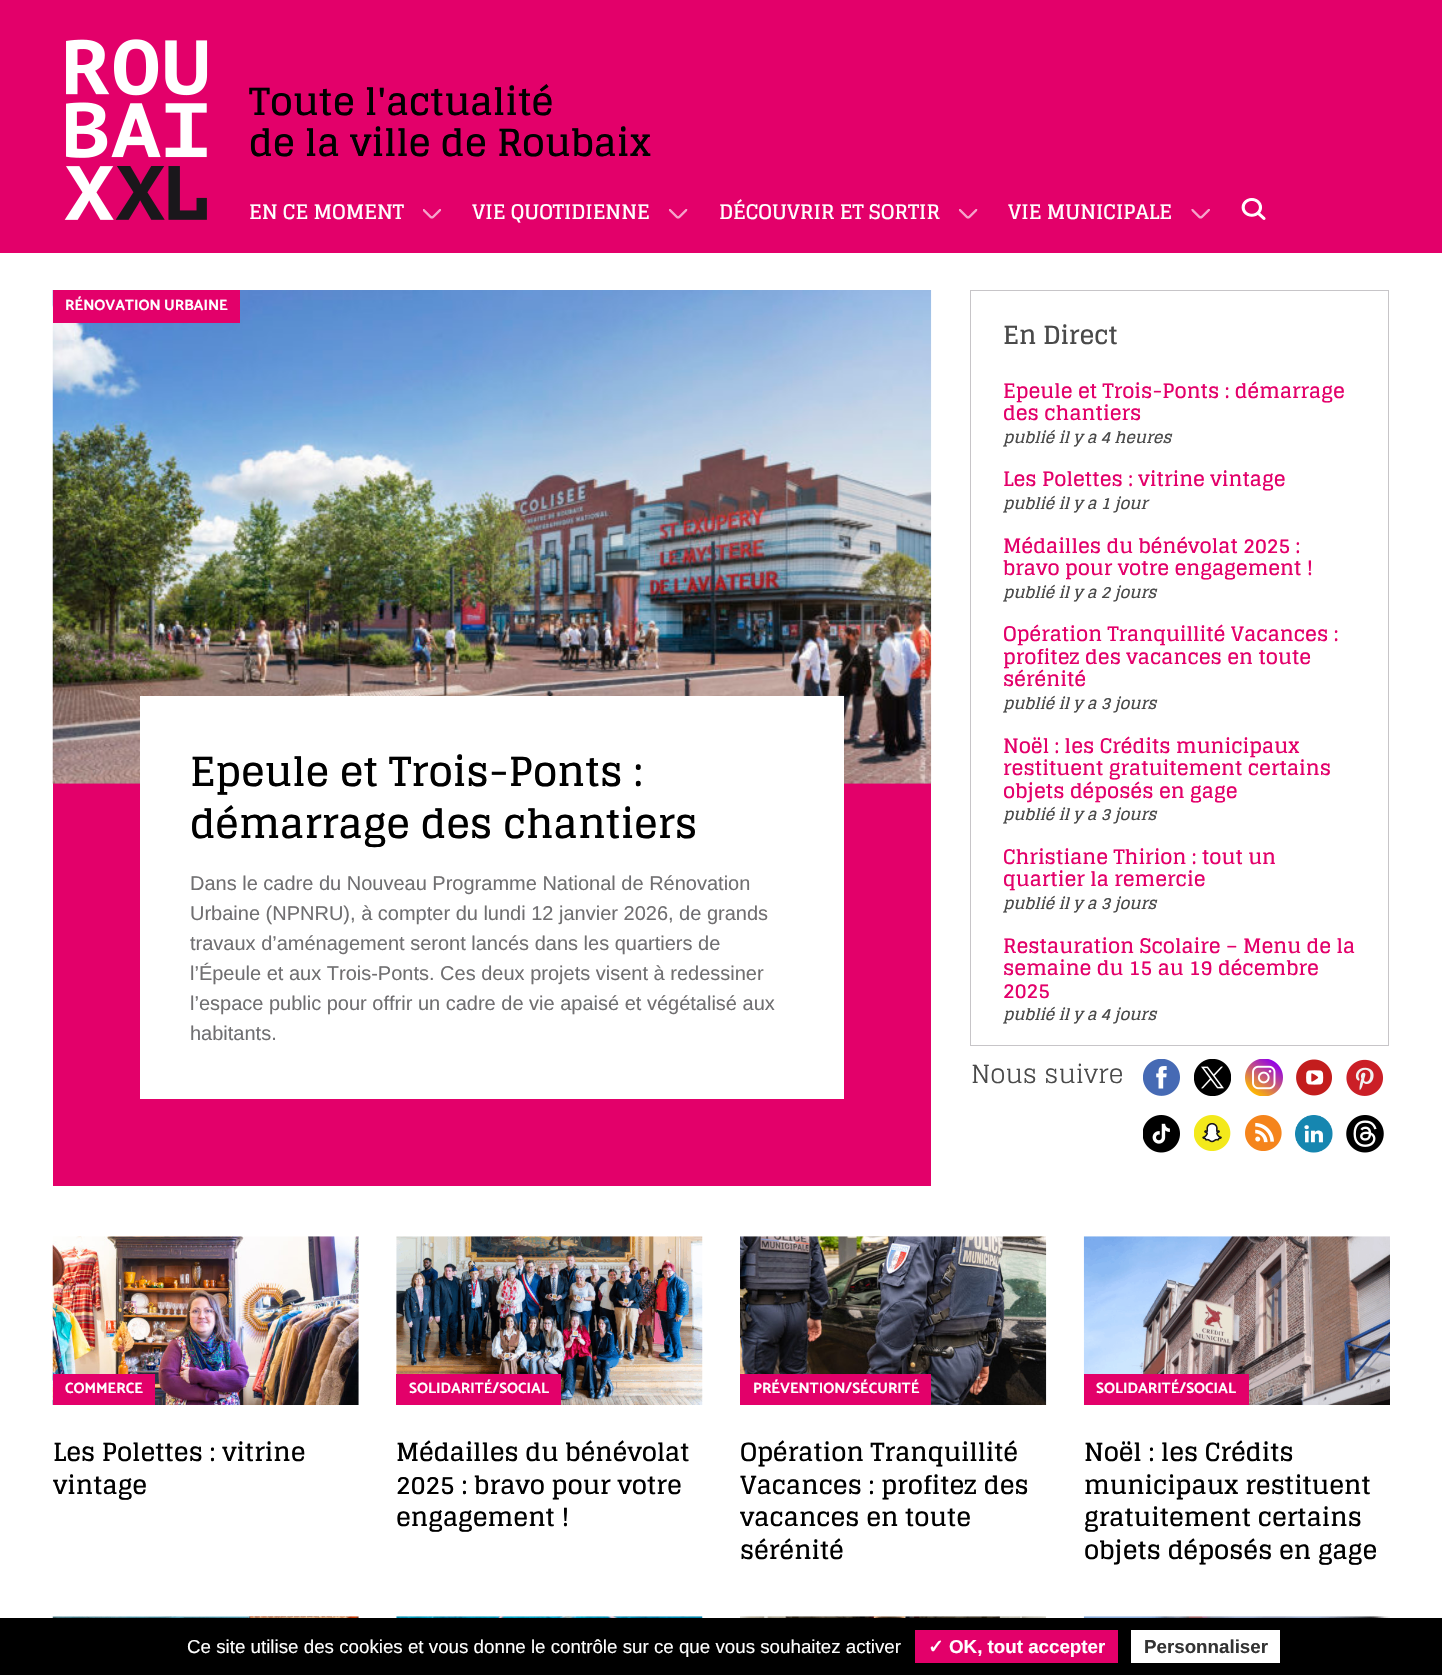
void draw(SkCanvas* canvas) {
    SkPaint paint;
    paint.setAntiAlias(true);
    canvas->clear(0xFFFFFFFF);
    paint.setColor(0xFFE3006A);
    canvas->drawRect(SkRect::MakeXYWH(0, 0, 1442, 253), paint);
    canvas->drawImageRect(SkImages::DeferredFromEncodedData(SkData::MakeFromFileName("img1.png")), SkRect::MakeXYWH(64, 39, 144, 181), SkSamplingOptions());
    SkFont font1(fontMgr->matchFamilyStyle("Glegoo", SkFontStyle::Bold()), 37.5f);
    font1.setSubpixel(true);
    paint.setColor(0xFF000000);
    canvas->drawString("Toute l'actualité", 249, 115, font1, paint);
    canvas->drawString("de la ville de Roubaix", 249, 156, font1, paint);
    SkFont font2(fontMgr->matchFamilyStyle("Glegoo", SkFontStyle::Bold()), 20);
    font2.setSubpixel(true);
    paint.setColor(0xFFFFFFFF);
    canvas->drawString("EN CE MOMENT", 249, 219, font2, paint);
    canvas->drawImageRect(SkImages::DeferredFromEncodedData(SkData::MakeFromFileName("img2.png")), SkRect::MakeXYWH(423, 209, 18, 10), SkSamplingOptions());
    canvas->drawString("VIE QUOTIDIENNE", 472, 219, font2, paint);
    canvas->drawImageRect(SkImages::DeferredFromEncodedData(SkData::MakeFromFileName("img3.png")), SkRect::MakeXYWH(669, 209, 19, 10), SkSamplingOptions());
    canvas->drawString("DÉCOUVRIR ET SORTIR", 719, 219, font2, paint);
    canvas->drawImageRect(SkImages::DeferredFromEncodedData(SkData::MakeFromFileName("img3.png")), SkRect::MakeXYWH(959, 209, 19, 10), SkSamplingOptions());
    canvas->drawString("VIE MUNICIPALE", 1008, 219, font2, paint);
    canvas->drawImageRect(SkImages::DeferredFromEncodedData(SkData::MakeFromFileName("img4.png")), SkRect::MakeXYWH(1191, 209, 19, 10), SkSamplingOptions());
    canvas->drawImageRect(SkImages::DeferredFromEncodedData(SkData::MakeFromFileName("img5.png")), SkRect::MakeXYWH(1241, 198, 25, 22), SkSamplingOptions());
    paint.setColor(0xFFE3006A);
    canvas->drawRect(SkRect::MakeXYWH(53, 783, 878, 403), paint);
    canvas->drawImageRect(SkImages::DeferredFromEncodedData(SkData::MakeFromFileName("img6.png")), SkRect::MakeXYWH(52, 290, 880, 494), SkSamplingOptions());
    canvas->drawRect(SkRect::MakeXYWH(53, 290, 187, 33), paint);
    SkFont font3(fontMgr->matchFamilyStyle("Catamaran", SkFontStyle(100, SkFontStyle::kNormal_Width, SkFontStyle::kUpright_Slant)), 15);
    font3.setSubpixel(true);
    paint.setColor(0xFFFFFFFF);
    canvas->drawString("RÉNOVATION URBAINE", 65, 310, font3, paint);
    canvas->drawRect(SkRect::MakeXYWH(140, 696, 704, 403), paint);
    SkFont font4(fontMgr->matchFamilyStyle("Glegoo", SkFontStyle::Bold()), 40);
    font4.setSubpixel(true);
    paint.setColor(0xFF000000);
    canvas->drawString("Epeule et Trois-Ponts :", 190, 786, font4, paint);
    canvas->drawString("démarrage des chantiers", 190, 838, font4, paint);
    SkFont font5(fontMgr->matchFamilyStyle("Liberation Sans", SkFontStyle::Normal()), 20);
    font5.setSubpixel(true);
    paint.setColor(0xFF706F71);
    canvas->drawString("Dans le cadre du Nouveau Programme National de Rénovation", 190, 890, font5, paint);
    canvas->drawString("Urbaine (NPNRU), à compter du lundi 12 janvier 2026, de grands", 190, 920, font5, paint);
    canvas->drawString("travaux d’aménagement seront lancés dans les quartiers de", 190, 950, font5, paint);
    canvas->drawString("l’Épeule et aux Trois-Ponts. Ces deux projets visent à redessiner", 190, 980, font5, paint);
    canvas->drawString("l’espace public pour offrir un cadre de vie apaisé et végétalisé aux", 190, 1010, font5, paint);
    canvas->drawString("habitants.", 190, 1040, font5, paint);
    paint.setStyle(SkPaint::kStroke_Style);
    paint.setStrokeWidth(1);
    paint.setColor(0xFFC7C5C8);
    canvas->drawRect(SkRect::MakeXYWH(970.5f, 290.5f, 418, 755), paint);
    SkFont font6(fontMgr->matchFamilyStyle("Glegoo", SkFontStyle::Bold()), 25);
    font6.setSubpixel(true);
    paint.setStyle(SkPaint::kFill_Style);
    paint.setColor(0xFF4A4A4A);
    canvas->drawString("En Direct", 1003, 344, font6, paint);
    paint.setColor(0xFFE3006A);
    canvas->drawString("Epeule et Trois-Ponts : démarrage", 1003, 398, font2, paint);
    canvas->drawString("des chantiers", 1003, 420, font2, paint);
    SkFont font7(fontMgr->matchFamilyStyle("Glegoo", SkFontStyle::BoldItalic()), 16);
    font7.setSubpixel(true);
    paint.setColor(0xFF4A4A4A);
    canvas->drawString("publié il y a 4 heures", 1003, 443, font7, paint);
    paint.setColor(0xFFE3006A);
    canvas->drawString("Les Polettes : vitrine vintage", 1003, 486, font2, paint);
    paint.setColor(0xFF4A4A4A);
    canvas->drawString("publié il y a 1 jour", 1003, 509, font7, paint);
    paint.setColor(0xFFE3006A);
    canvas->drawString("Médailles du bénévolat 2025 :", 1003, 553, font2, paint);
    canvas->drawString("bravo pour votre engagement !", 1003, 575, font2, paint);
    paint.setColor(0xFF4A4A4A);
    canvas->drawString("publié il y a 2 jours", 1003, 598, font7, paint);
    paint.setColor(0xFFE3006A);
    canvas->drawString("Opération Tranquillité Vacances :", 1003, 641, font2, paint);
    canvas->drawString("profitez des vacances en toute", 1003, 664, font2, paint);
    canvas->drawString("sérénité", 1003, 686, font2, paint);
    paint.setColor(0xFF4A4A4A);
    canvas->drawString("publié il y a 3 jours", 1003, 709, font7, paint);
    paint.setColor(0xFFE3006A);
    canvas->drawString("Noël : les Crédits municipaux", 1003, 753, font2, paint);
    canvas->drawString("restituent gratuitement certains", 1003, 775, font2, paint);
    canvas->drawString("objets déposés en gage", 1003, 798, font2, paint);
    paint.setColor(0xFF4A4A4A);
    canvas->drawString("publié il y a 3 jours", 1003, 820, font7, paint);
    paint.setColor(0xFFE3006A);
    canvas->drawString("Christiane Thirion : tout un", 1003, 864, font2, paint);
    canvas->drawString("quartier la remercie", 1003, 886, font2, paint);
    paint.setColor(0xFF4A4A4A);
    canvas->drawString("publié il y a 3 jours", 1003, 909, font7, paint);
    paint.setColor(0xFFE3006A);
    canvas->drawString("Restauration Scolaire – Menu de la", 1003, 953, font2, paint);
    canvas->drawString("semaine du 15 au 19 décembre", 1003, 975, font2, paint);
    canvas->drawString("2025", 1003, 998, font2, paint);
    paint.setColor(0xFF4A4A4A);
    canvas->drawString("publié il y a 4 jours", 1003, 1020, font7, paint);
    SkFont font8(fontMgr->matchFamilyStyle("Glegoo", SkFontStyle::Normal()), 25);
    font8.setSubpixel(true);
    canvas->drawString("Nous suivre", 971, 1083, font8, paint);
    canvas->drawImageRect(SkImages::DeferredFromEncodedData(SkData::MakeFromFileName("img7.png")), SkRect::MakeXYWH(1143, 1059, 37, 37), SkSamplingOptions());
    canvas->drawImageRect(SkImages::DeferredFromEncodedData(SkData::MakeFromFileName("img8.png")), SkRect::MakeXYWH(1194, 1059, 37, 37), SkSamplingOptions());
    canvas->drawImageRect(SkImages::DeferredFromEncodedData(SkData::MakeFromFileName("img9.png")), SkRect::MakeXYWH(1245, 1059, 38, 37), SkSamplingOptions());
    canvas->drawImageRect(SkImages::DeferredFromEncodedData(SkData::MakeFromFileName("img10.png")), SkRect::MakeXYWH(1296, 1059, 36, 37), SkSamplingOptions());
    canvas->drawImageRect(SkImages::DeferredFromEncodedData(SkData::MakeFromFileName("img11.png")), SkRect::MakeXYWH(1346, 1059, 38, 37), SkSamplingOptions());
    canvas->drawImageRect(SkImages::DeferredFromEncodedData(SkData::MakeFromFileName("img12.png")), SkRect::MakeXYWH(1143, 1115, 37, 38), SkSamplingOptions());
    canvas->drawImageRect(SkImages::DeferredFromEncodedData(SkData::MakeFromFileName("img13.png")), SkRect::MakeXYWH(1194, 1115, 37, 36), SkSamplingOptions());
    canvas->drawImageRect(SkImages::DeferredFromEncodedData(SkData::MakeFromFileName("img14.png")), SkRect::MakeXYWH(1245, 1115, 37, 36), SkSamplingOptions());
    canvas->drawImageRect(SkImages::DeferredFromEncodedData(SkData::MakeFromFileName("img15.png")), SkRect::MakeXYWH(1295, 1115, 38, 38), SkSamplingOptions());
    canvas->drawImageRect(SkImages::DeferredFromEncodedData(SkData::MakeFromFileName("img16.png")), SkRect::MakeXYWH(1346, 1115, 38, 38), SkSamplingOptions());
    canvas->drawImageRect(SkImages::DeferredFromEncodedData(SkData::MakeFromFileName("img17.png")), SkRect::MakeXYWH(52, 1236, 307, 169), SkSamplingOptions());
    paint.setColor(0xFFE3006A);
    canvas->drawRect(SkRect::MakeXYWH(53, 1374, 102, 31), paint);
    paint.setColor(0xFFFFFFFF);
    canvas->drawString("COMMERCE", 65, 1393, font3, paint);
    paint.setColor(0xFF000000);
    canvas->drawString("Les Polettes : vitrine", 53, 1461, font6, paint);
    canvas->drawString("vintage", 53, 1494, font6, paint);
    canvas->drawImageRect(SkImages::DeferredFromEncodedData(SkData::MakeFromFileName("img18.png")), SkRect::MakeXYWH(396, 1236, 307, 169), SkSamplingOptions());
    paint.setColor(0xFFE3006A);
    canvas->drawRect(SkRect::MakeXYWH(396, 1374, 165, 31), paint);
    paint.setColor(0xFFFFFFFF);
    canvas->drawString("SOLIDARITÉ/SOCIAL", 409, 1393, font3, paint);
    paint.setColor(0xFF000000);
    canvas->drawString("Médailles du bénévolat", 396, 1461, font6, paint);
    canvas->drawString("2025 : bravo pour votre", 396, 1494, font6, paint);
    canvas->drawString("engagement !", 396, 1526, font6, paint);
    canvas->drawImageRect(SkImages::DeferredFromEncodedData(SkData::MakeFromFileName("img19.png")), SkRect::MakeXYWH(740, 1236, 307, 169), SkSamplingOptions());
    paint.setColor(0xFFE3006A);
    canvas->drawRect(SkRect::MakeXYWH(740, 1374, 191, 31), paint);
    paint.setColor(0xFFFFFFFF);
    canvas->drawString("PRÉVENTION/SÉCURITÉ", 753, 1393, font3, paint);
    paint.setColor(0xFF000000);
    canvas->drawString("Opération Tranquillité", 740, 1461, font6, paint);
    canvas->drawString("Vacances : profitez des", 740, 1494, font6, paint);
    canvas->drawString("vacances en toute", 740, 1526, font6, paint);
    canvas->drawString("sérénité", 740, 1559, font6, paint);
    canvas->drawImageRect(SkImages::DeferredFromEncodedData(SkData::MakeFromFileName("img20.png")), SkRect::MakeXYWH(1083, 1236, 307, 169), SkSamplingOptions());
    paint.setColor(0xFFE3006A);
    canvas->drawRect(SkRect::MakeXYWH(1084, 1374, 165, 31), paint);
    paint.setColor(0xFFFFFFFF);
    canvas->drawString("SOLIDARITÉ/SOCIAL", 1096, 1393, font3, paint);
    paint.setColor(0xFF000000);
    canvas->drawString("Noël : les Crédits", 1084, 1461, font6, paint);
    canvas->drawString("municipaux restituent", 1084, 1494, font6, paint);
    canvas->drawString("gratuitement certains", 1084, 1526, font6, paint);
    canvas->drawString("objets déposés en gage", 1084, 1559, font6, paint);
    canvas->drawImageRect(SkImages::DeferredFromEncodedData(SkData::MakeFromFileName("img21.png")), SkRect::MakeXYWH(52, 1616, 307, 2), SkSamplingOptions());
    canvas->drawImageRect(SkImages::DeferredFromEncodedData(SkData::MakeFromFileName("img22.png")), SkRect::MakeXYWH(396, 1616, 307, 2), SkSamplingOptions());
    canvas->drawImageRect(SkImages::DeferredFromEncodedData(SkData::MakeFromFileName("img23.png")), SkRect::MakeXYWH(740, 1616, 307, 2), SkSamplingOptions());
    canvas->drawImageRect(SkImages::DeferredFromEncodedData(SkData::MakeFromFileName("img24.png")), SkRect::MakeXYWH(1083, 1616, 307, 2), SkSamplingOptions());
    canvas->drawRect(SkRect::MakeXYWH(0, 1618, 1442, 57), paint);
    SkFont font9(fontMgr->matchFamilyStyle("Liberation Sans", SkFontStyle::Normal()), 18.75f);
    font9.setSubpixel(true);
    paint.setColor(0xFFFFFFFF);
    canvas->drawString("Ce site utilise des cookies et vous donne le contrôle sur ce que vous souhaitez activer", 187, 1653, font9, paint);
    paint.setColor(0xFFE3006A);
    canvas->drawRect(SkRect::MakeXYWH(915, 1630, 203, 33), paint);
    SkFont font10(fontMgr->matchFamilyStyle("DejaVu Sans", SkFontStyle::Bold()), 18.75f);
    font10.setSubpixel(true);
    paint.setColor(0xFFFFFFFF);
    canvas->drawString("✓", 928, 1653, font10, paint);
    SkFont font11(fontMgr->matchFamilyStyle("Liberation Sans", SkFontStyle::Bold()), 18.75f);
    font11.setSubpixel(true);
    canvas->drawString("OK, tout accepter", 949, 1653, font11, paint);
    canvas->drawRect(SkRect::MakeXYWH(1131, 1630, 149, 33), paint);
    paint.setColor(0xFF333333);
    canvas->drawString("Personnaliser", 1144, 1653, font11, paint);
}
